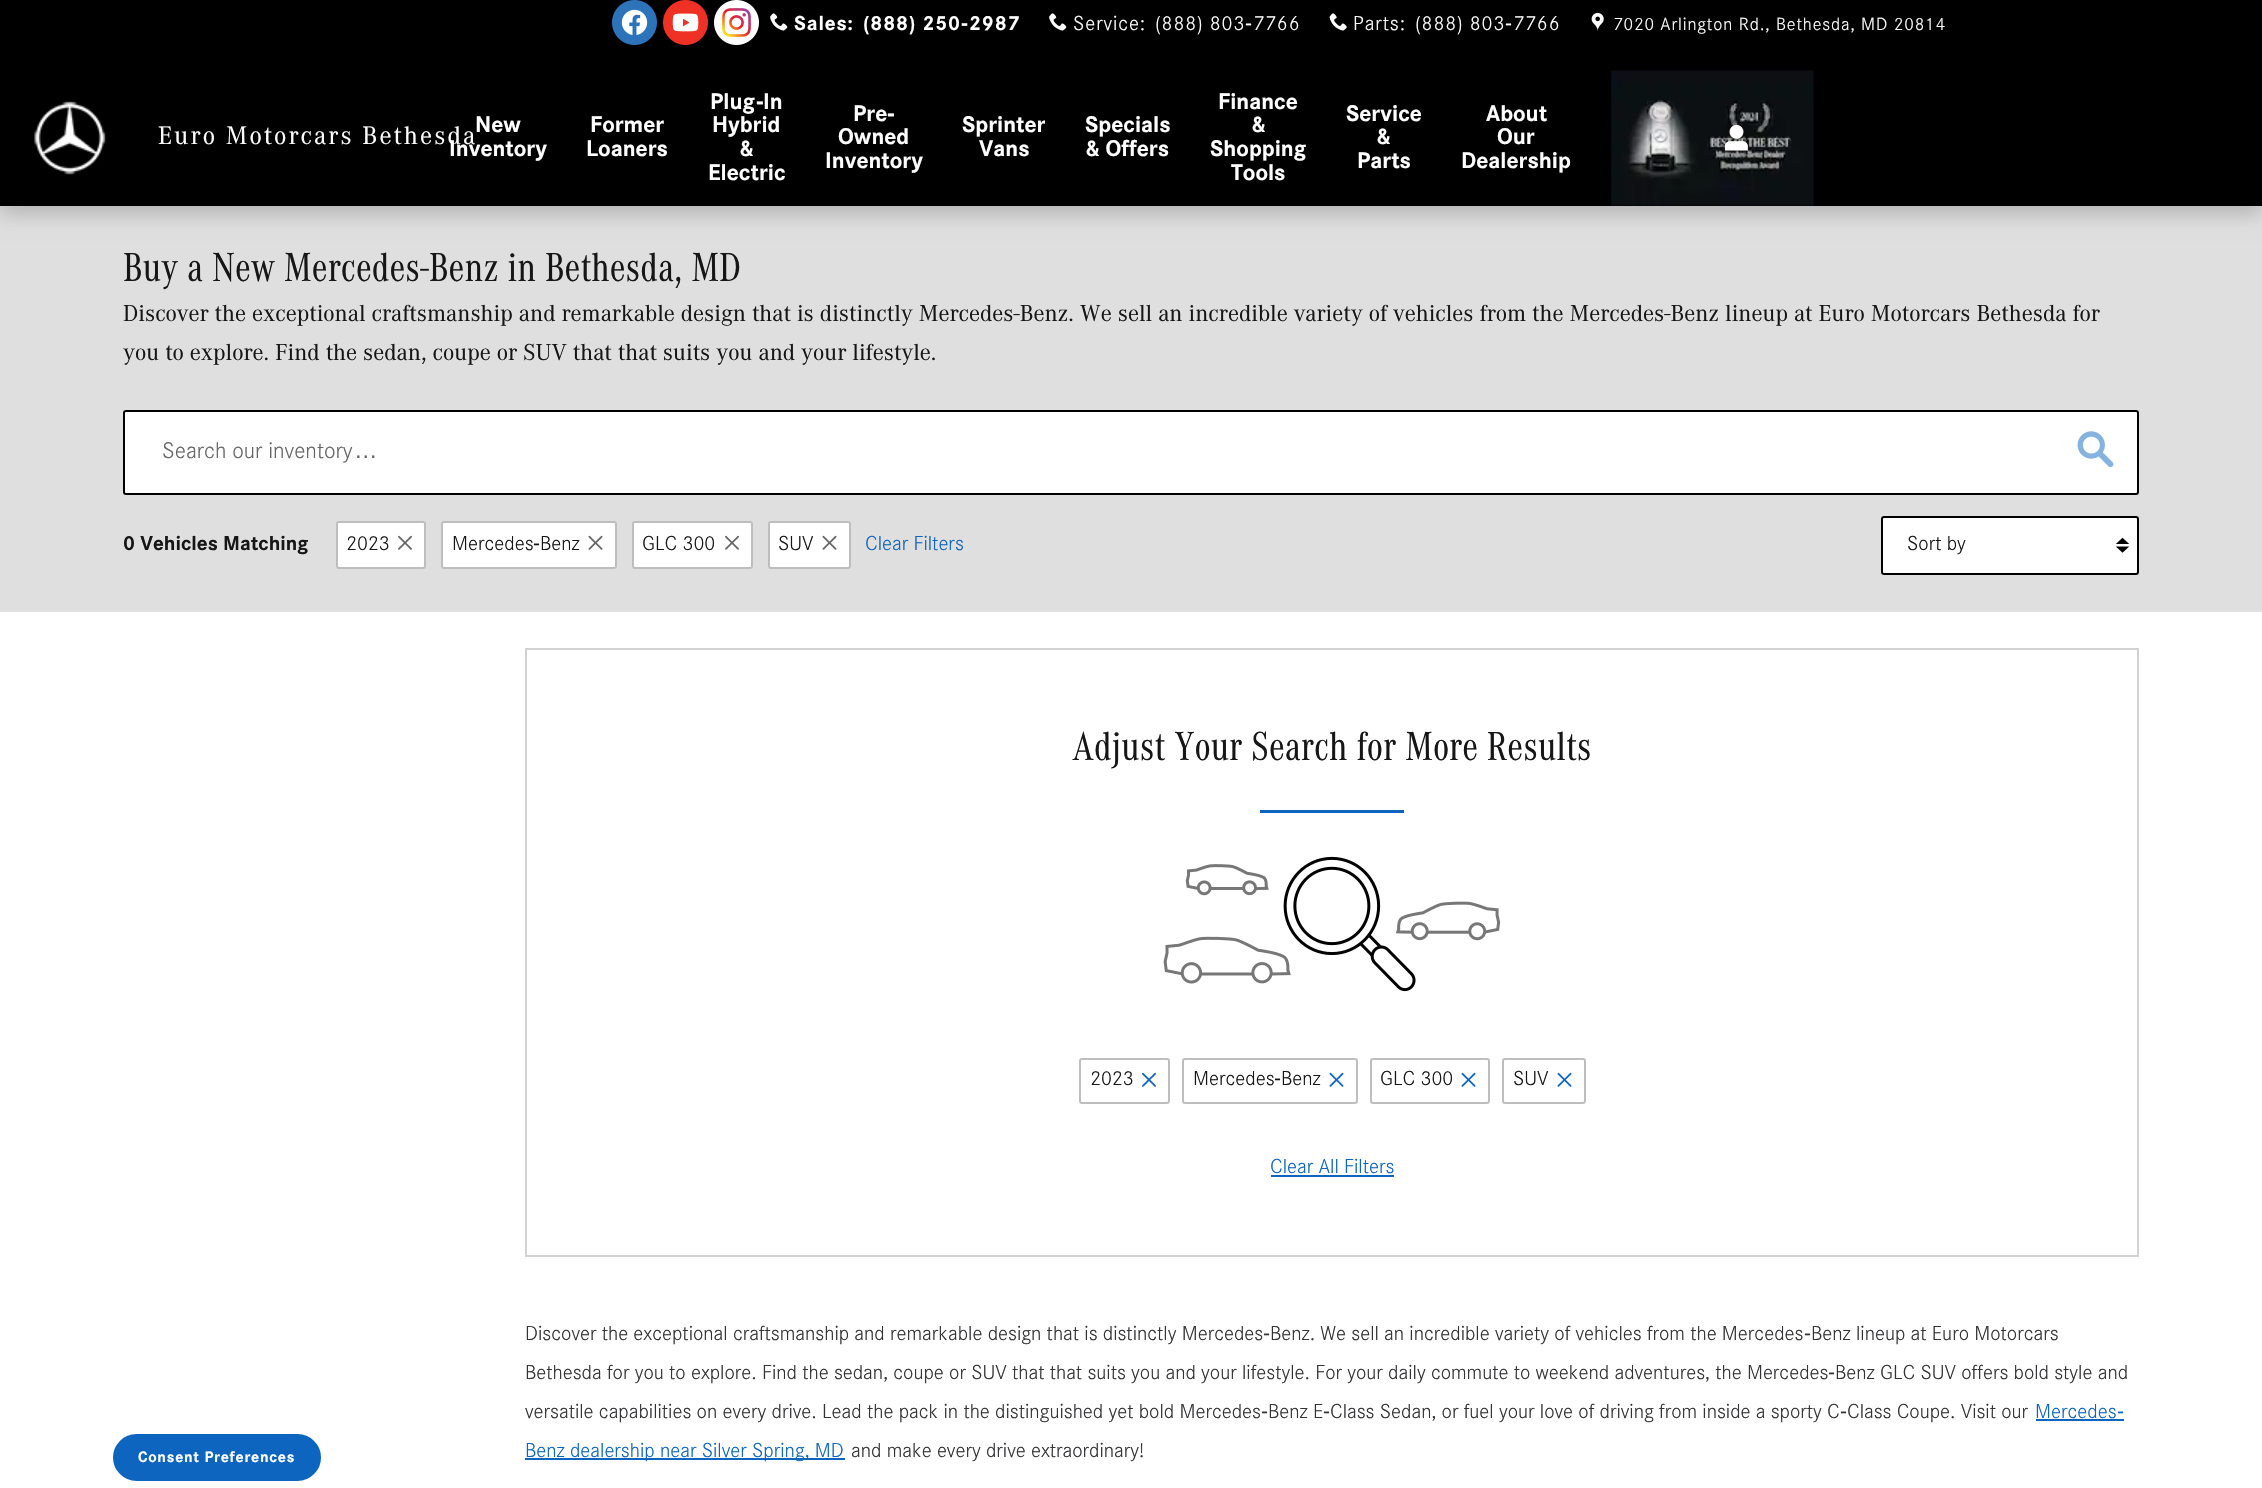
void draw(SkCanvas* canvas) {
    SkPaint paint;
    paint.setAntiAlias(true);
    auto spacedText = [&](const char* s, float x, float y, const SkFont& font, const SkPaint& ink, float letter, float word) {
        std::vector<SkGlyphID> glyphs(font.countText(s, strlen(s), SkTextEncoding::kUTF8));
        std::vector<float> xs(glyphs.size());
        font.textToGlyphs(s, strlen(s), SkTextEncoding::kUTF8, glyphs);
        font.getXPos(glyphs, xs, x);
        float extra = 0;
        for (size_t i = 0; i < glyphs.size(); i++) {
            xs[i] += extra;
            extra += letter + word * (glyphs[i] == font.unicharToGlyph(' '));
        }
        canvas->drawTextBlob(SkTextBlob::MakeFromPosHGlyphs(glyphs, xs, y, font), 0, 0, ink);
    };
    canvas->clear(0xFFFFFFFF);
    paint.setColor(0xFFDFDFDF);
    canvas->drawRect(SkRect::MakeXYWH(0, 206, 2262, 406), paint);
    paint.setColor(0x2E000000);
    paint.setMaskFilter(SkMaskFilter::MakeBlur(kNormal_SkBlurStyle, 9));
    canvas->drawRect(SkRect::MakeXYWH(0, 9, 2262, 206), paint);
    paint.setMaskFilter(nullptr);
    paint.setColor(0xFF000000);
    canvas->drawRect(SkRect::MakeXYWH(0, 0, 2262, 206), paint);
    canvas->drawImageRect(SkImages::DeferredFromEncodedData(SkData::MakeFromFileName("img1.png")), SkRect::MakeXYWH(612, 0, 45, 45), SkSamplingOptions());
    canvas->drawImageRect(SkImages::DeferredFromEncodedData(SkData::MakeFromFileName("img2.png")), SkRect::MakeXYWH(663, 0, 45, 45), SkSamplingOptions());
    canvas->drawImageRect(SkImages::DeferredFromEncodedData(SkData::MakeFromFileName("img3.png")), SkRect::MakeXYWH(714, 0, 45, 45), SkSamplingOptions());
    canvas->drawImageRect(SkImages::DeferredFromEncodedData(SkData::MakeFromFileName("img4.png")), SkRect::MakeXYWH(770, 13, 18, 18), SkSamplingOptions());
    SkFont font1(fontMgr->matchFamilyStyle("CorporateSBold", SkFontStyle::Bold()), 21);
    font1.setSubpixel(true);
    paint.setColor(0xFFFFFFFF);
    spacedText("Sales:", 794, 30, font1, paint, 0.9f, 0);
    spacedText("(888) 250", 863, 30, font1, paint, 0.9f, 0);
    SkFont font2(fontMgr->matchFamilyStyle("Liberation Sans", SkFontStyle::Bold()), 21);
    font2.setSubpixel(true);
    spacedText("-", 961, 30, font2, paint, 0.9f, 0);
    spacedText("2987", 969, 30, font1, paint, 0.9f, 0);
    canvas->drawImageRect(SkImages::DeferredFromEncodedData(SkData::MakeFromFileName("img4.png")), SkRect::MakeXYWH(1049, 13, 18, 18), SkSamplingOptions());
    SkFont font3(fontMgr->matchFamilyStyle("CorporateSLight", SkFontStyle(300, SkFontStyle::kNormal_Width, SkFontStyle::kUpright_Slant)), 21);
    font3.setSubpixel(true);
    spacedText("Service:", 1073, 30, font3, paint, 0.9f, 0);
    spacedText("(888) 803", 1155, 30, font3, paint, 0.9f, 0);
    SkFont font4(fontMgr->matchFamilyStyle("Liberation Sans", SkFontStyle::Normal()), 21);
    font4.setSubpixel(true);
    spacedText("-", 1245, 30, font4, paint, 0.9f, 0);
    spacedText("7766", 1253, 30, font3, paint, 0.9f, 0);
    canvas->drawImageRect(SkImages::DeferredFromEncodedData(SkData::MakeFromFileName("img5.png")), SkRect::MakeXYWH(1329, 13, 18, 18), SkSamplingOptions());
    spacedText("Parts:", 1353, 30, font3, paint, 0.9f, 0);
    spacedText("(888) 803", 1415, 30, font3, paint, 0.9f, 0);
    spacedText("-", 1505, 30, font4, paint, 0.9f, 0);
    spacedText("7766", 1513, 30, font3, paint, 0.9f, 0);
    canvas->drawImageRect(SkImages::DeferredFromEncodedData(SkData::MakeFromFileName("img6.png")), SkRect::MakeXYWH(1591, 12, 13, 19), SkSamplingOptions());
    SkFont font5(fontMgr->matchFamilyStyle("CorporateSLight", SkFontStyle(300, SkFontStyle::kNormal_Width, SkFontStyle::kUpright_Slant)), 18.4f);
    font5.setSubpixel(true);
    spacedText("7020 Arlington Rd., Bethesda, MD 20814", 1613, 30, font5, paint, 0.9f, 0);
    canvas->drawImageRect(SkImages::DeferredFromEncodedData(SkData::MakeFromFileName("img7.png")), SkRect::MakeXYWH(34, 101, 72, 74), SkSamplingOptions());
    SkFont font6(fontMgr->matchFamilyStyle("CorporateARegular", SkFontStyle::Normal()), 26.25f);
    font6.setSubpixel(true);
    spacedText("Euro Motorcars Bethesda", 158, 144, font6, paint, 2.1f, 0);
    SkFont font7(fontMgr->matchFamilyStyle("CorporateSBold", SkFontStyle::Bold()), 23.5f);
    font7.setSubpixel(true);
    canvas->drawString("New", 475, 132, font7, paint);
    canvas->drawString("Inventory", 449, 156, font7, paint);
    canvas->drawString("Former", 590, 132, font7, paint);
    canvas->drawString("Loaners", 586, 156, font7, paint);
    canvas->drawString("Plug", 710, 109, font7, paint);
    SkFont font8(fontMgr->matchFamilyStyle("Liberation Sans", SkFontStyle::Bold()), 23.5f);
    font8.setSubpixel(true);
    canvas->drawString("-", 756, 109, font8, paint);
    canvas->drawString("In", 763, 109, font7, paint);
    canvas->drawString("Hybrid", 712, 132, font7, paint);
    canvas->drawString("&", 740, 156, font7, paint);
    canvas->drawString("Electric", 708, 180, font7, paint);
    canvas->drawString("Pre", 853, 121, font7, paint);
    canvas->drawString("-", 887, 121, font8, paint);
    canvas->drawString("Owned", 838, 144, font7, paint);
    canvas->drawString("Inventory", 825, 168, font7, paint);
    canvas->drawString("Sprinter", 962, 132, font7, paint);
    canvas->drawString("Vans", 979, 156, font7, paint);
    canvas->drawString("Specials", 1085, 132, font7, paint);
    canvas->drawString("& Offers", 1086, 156, font7, paint);
    canvas->drawString("Finance", 1218, 109, font7, paint);
    canvas->drawString("&", 1252, 132, font7, paint);
    canvas->drawString("Shopping", 1210, 156, font7, paint);
    canvas->drawString("Tools", 1231, 180, font7, paint);
    canvas->drawString("Service", 1346, 121, font7, paint);
    canvas->drawString("&", 1377, 144, font7, paint);
    canvas->drawString("Parts", 1357, 168, font7, paint);
    canvas->drawString("About", 1486, 121, font7, paint);
    canvas->drawString("Our", 1497, 144, font7, paint);
    canvas->drawString("Dealership", 1461, 168, font7, paint);
    canvas->drawImageRect(SkImages::DeferredFromEncodedData(SkData::MakeFromFileName("img8.png")), SkRect::MakeXYWH(1611, 70, 203, 136), SkSamplingOptions());
    canvas->drawImageRect(SkImages::DeferredFromEncodedData(SkData::MakeFromFileName("img9.png")), SkRect::MakeXYWH(1724, 124, 24, 27), SkSamplingOptions());
    SkFont font9(fontMgr->matchFamilyStyle("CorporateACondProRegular", SkFontStyle::Normal()), 42);
    font9.setSubpixel(true);
    paint.setColor(0xFF161616);
    canvas->drawString("Buy a New Mercedes-Benz in Bethesda, MD", 123, 281, font9, paint);
    SkFont font10(fontMgr->matchFamilyStyle("CorporateARegular", SkFontStyle::Normal()), 24);
    font10.setSubpixel(true);
    canvas->drawString("Discover the exceptional craftsmanship and remarkable design that is distinctly Mercedes-Benz. We sell an incredible variety of vehicles from the Mercedes-Benz lineup at Euro Motorcars Bethesda for", 123, 321, font10, paint);
    canvas->drawString("you to explore. Find the sedan, coupe or SUV that that suits you and your lifestyle.", 123, 360, font10, paint);
    paint.setColor(0xFFFFFFFF);
    canvas->drawRoundRect(SkRect::MakeXYWH(124, 411, 2014, 83), 2, 2, paint);
    paint.setStyle(SkPaint::kStroke_Style);
    paint.setStrokeWidth(2);
    paint.setColor(0xFF000000);
    canvas->drawRoundRect(SkRect::MakeXYWH(124, 411, 2014, 83), 2, 2, paint);
    SkFont font11(fontMgr->matchFamilyStyle("CorporateSLight", SkFontStyle(300, SkFontStyle::kNormal_Width, SkFontStyle::kUpright_Slant)), 23.5f);
    font11.setSubpixel(true);
    paint.setStyle(SkPaint::kFill_Style);
    paint.setColor(0xFF666666);
    canvas->drawString("Search our inventory", 162, 458, font11, paint);
    SkFont font12(fontMgr->matchFamilyStyle("Liberation Sans", SkFontStyle::Normal()), 23.5f);
    font12.setSubpixel(true);
    canvas->drawString("…", 354, 458, font12, paint);
    canvas->drawImageRect(SkImages::DeferredFromEncodedData(SkData::MakeFromFileName("img10.png")), SkRect::MakeXYWH(2077, 431, 37, 37), SkSamplingOptions());
    paint.setColor(0xFF161616);
    canvas->drawString("0 Vehicles Matching", 123, 550, font1, paint);
    paint.setColor(0xFFFFFFFF);
    canvas->drawRoundRect(SkRect::MakeXYWH(337, 522, 88, 46), 2, 2, paint);
    paint.setStyle(SkPaint::kStroke_Style);
    paint.setColor(0xFFBEBEBE);
    canvas->drawRoundRect(SkRect::MakeXYWH(337, 522, 88, 46), 2, 2, paint);
    paint.setStyle(SkPaint::kFill_Style);
    paint.setColor(0xFF161616);
    canvas->drawString("2023", 346, 550, font3, paint);
    canvas->drawImageRect(SkImages::DeferredFromEncodedData(SkData::MakeFromFileName("img11.png")), SkRect::MakeXYWH(398, 535, 14, 15), SkSamplingOptions());
    paint.setColor(0xFFFFFFFF);
    canvas->drawRoundRect(SkRect::MakeXYWH(442, 522, 174, 46), 2, 2, paint);
    paint.setStyle(SkPaint::kStroke_Style);
    paint.setColor(0xFFBEBEBE);
    canvas->drawRoundRect(SkRect::MakeXYWH(442, 522, 174, 46), 2, 2, paint);
    paint.setStyle(SkPaint::kFill_Style);
    paint.setColor(0xFF161616);
    canvas->drawString("Mercedes", 452, 550, font3, paint);
    canvas->drawString("-", 533, 550, font4, paint);
    canvas->drawString("Benz", 540, 550, font3, paint);
    canvas->drawImageRect(SkImages::DeferredFromEncodedData(SkData::MakeFromFileName("img12.png")), SkRect::MakeXYWH(588, 535, 15, 15), SkSamplingOptions());
    paint.setColor(0xFFFFFFFF);
    canvas->drawRoundRect(SkRect::MakeXYWH(633, 522, 119, 46), 2, 2, paint);
    paint.setStyle(SkPaint::kStroke_Style);
    paint.setColor(0xFFBEBEBE);
    canvas->drawRoundRect(SkRect::MakeXYWH(633, 522, 119, 46), 2, 2, paint);
    paint.setStyle(SkPaint::kFill_Style);
    paint.setColor(0xFF161616);
    canvas->drawString("GLC 300", 642, 550, font3, paint);
    canvas->drawImageRect(SkImages::DeferredFromEncodedData(SkData::MakeFromFileName("img11.png")), SkRect::MakeXYWH(725, 535, 14, 15), SkSamplingOptions());
    paint.setColor(0xFFFFFFFF);
    canvas->drawRoundRect(SkRect::MakeXYWH(769, 522, 81, 46), 2, 2, paint);
    paint.setStyle(SkPaint::kStroke_Style);
    paint.setColor(0xFFBEBEBE);
    canvas->drawRoundRect(SkRect::MakeXYWH(769, 522, 81, 46), 2, 2, paint);
    paint.setStyle(SkPaint::kFill_Style);
    paint.setColor(0xFF161616);
    canvas->drawString("SUV", 778, 550, font3, paint);
    canvas->drawImageRect(SkImages::DeferredFromEncodedData(SkData::MakeFromFileName("img12.png")), SkRect::MakeXYWH(822, 535, 15, 15), SkSamplingOptions());
    paint.setColor(0xFF0D65BF);
    canvas->drawString("Clear Filters", 865, 550, font3, paint);
    paint.setColor(0xFFFFFFFF);
    canvas->drawRoundRect(SkRect::MakeXYWH(1881, 516, 258, 59), 3, 3, paint);
    canvas->drawImageRect(SkImages::DeferredFromEncodedData(SkData::MakeFromFileName("img13.png")), SkRect::MakeXYWH(2115, 537, 15, 16), SkSamplingOptions());
    paint.setStyle(SkPaint::kStroke_Style);
    paint.setColor(0xFF000000);
    canvas->drawRoundRect(SkRect::MakeXYWH(1882, 517, 256, 57), 2, 2, paint);
    paint.setStyle(SkPaint::kFill_Style);
    paint.setColor(0xFF161616);
    canvas->drawString("Sort by", 1907, 550, font3, paint);
    paint.setStyle(SkPaint::kStroke_Style);
    paint.setColor(0xFFD3D3D3);
    canvas->drawRect(SkRect::MakeXYWH(526, 649, 1612, 607), paint);
    paint.setStyle(SkPaint::kFill_Style);
    paint.setColor(0xFF161616);
    canvas->drawString("Adjust Your Search for More Results", 1072, 760, font9, paint);
    paint.setColor(0xFF0D65BF);
    canvas->drawRect(SkRect::MakeXYWH(1260, 810, 144, 3), paint);
    canvas->drawImageRect(SkImages::DeferredFromEncodedData(SkData::MakeFromFileName("img14.png")), SkRect::MakeXYWH(1163, 856, 338, 136), SkSamplingOptions());
    paint.setStyle(SkPaint::kStroke_Style);
    paint.setColor(0xFFBEBEBE);
    canvas->drawRoundRect(SkRect::MakeXYWH(1080, 1059, 89, 44), 2, 2, paint);
    paint.setStyle(SkPaint::kFill_Style);
    paint.setColor(0xFF161616);
    canvas->drawString("2023", 1090, 1085, font3, paint);
    canvas->drawImageRect(SkImages::DeferredFromEncodedData(SkData::MakeFromFileName("img15.png")), SkRect::MakeXYWH(1142, 1072, 14, 15), SkSamplingOptions());
    paint.setStyle(SkPaint::kStroke_Style);
    paint.setColor(0xFFBEBEBE);
    canvas->drawRoundRect(SkRect::MakeXYWH(1183, 1059, 174, 44), 2, 2, paint);
    paint.setStyle(SkPaint::kFill_Style);
    paint.setColor(0xFF161616);
    canvas->drawString("Mercedes", 1193, 1085, font3, paint);
    canvas->drawString("-", 1274, 1085, font4, paint);
    canvas->drawString("Benz", 1281, 1085, font3, paint);
    canvas->drawImageRect(SkImages::DeferredFromEncodedData(SkData::MakeFromFileName("img16.png")), SkRect::MakeXYWH(1329, 1072, 15, 15), SkSamplingOptions());
    paint.setStyle(SkPaint::kStroke_Style);
    paint.setColor(0xFFBEBEBE);
    canvas->drawRoundRect(SkRect::MakeXYWH(1371, 1059, 118, 44), 2, 2, paint);
    paint.setStyle(SkPaint::kFill_Style);
    paint.setColor(0xFF161616);
    canvas->drawString("GLC 300", 1380, 1085, font3, paint);
    canvas->drawImageRect(SkImages::DeferredFromEncodedData(SkData::MakeFromFileName("img16.png")), SkRect::MakeXYWH(1461, 1072, 15, 15), SkSamplingOptions());
    paint.setStyle(SkPaint::kStroke_Style);
    paint.setColor(0xFFBEBEBE);
    canvas->drawRoundRect(SkRect::MakeXYWH(1503, 1059, 82, 44), 2, 2, paint);
    paint.setStyle(SkPaint::kFill_Style);
    paint.setColor(0xFF161616);
    canvas->drawString("SUV", 1513, 1085, font3, paint);
    canvas->drawImageRect(SkImages::DeferredFromEncodedData(SkData::MakeFromFileName("img16.png")), SkRect::MakeXYWH(1557, 1072, 15, 15), SkSamplingOptions());
    paint.setColor(0xFF0D65BF);
    canvas->drawString("Clear All Filters", 1270, 1173, font3, paint);
    canvas->drawRect(SkRect::MakeXYWH(1271, 1175, 123, 2), paint);
    paint.setColor(0xFF343235);
    canvas->drawString("Discover the exceptional craftsmanship and remarkable design that is distinctly Mercedes", 525, 1340, font3, paint);
    canvas->drawString("-", 1263, 1340, font4, paint);
    canvas->drawString("Benz. We sell an incredible variety of vehicles from the Mercedes", 1270, 1340, font3, paint);
    canvas->drawString("-", 1804, 1340, font4, paint);
    canvas->drawString("Benz lineup at Euro Motorcars", 1811, 1340, font3, paint);
    canvas->drawString("Bethesda for you to explore. Find the sedan, coupe or SUV that that suits you and your lifestyle. For your daily commute to weekend adventures, the Mercedes", 525, 1379, font3, paint);
    canvas->drawString("-", 1828, 1379, font4, paint);
    canvas->drawString("Benz GLC SUV offers bold style and", 1835, 1379, font3, paint);
    canvas->drawString("versatile capabilities on every drive. Lead the pack in the distinguished yet bold Mercedes", 525, 1418, font3, paint);
    canvas->drawString("-", 1261, 1418, font4, paint);
    canvas->drawString("Benz E", 1268, 1418, font3, paint);
    canvas->drawString("-", 1323, 1418, font4, paint);
    canvas->drawString("Class Sedan, or fuel your love of driving from inside a sporty C", 1330, 1418, font3, paint);
    canvas->drawString("-", 1840, 1418, font4, paint);
    canvas->drawString("Class Coupe. Visit our", 1847, 1418, font3, paint);
    paint.setColor(0xFF0D65BF);
    canvas->drawString("Mercedes", 2035, 1418, font3, paint);
    canvas->drawString("-", 2117, 1418, font4, paint);
    canvas->drawRect(SkRect::MakeXYWH(2036, 1419, 88, 2), paint);
    canvas->drawRect(SkRect::MakeXYWH(525, 1458, 320, 2), paint);
    canvas->drawString("Benz dealership near Silver Spring, MD", 525, 1457, font3, paint);
    paint.setColor(0xFF343235);
    canvas->drawString("and make every drive extraordinary!", 851, 1457, font3, paint);
    paint.setColor(0xFF0D65BF);
    canvas->drawRoundRect(SkRect::MakeXYWH(114, 1435, 206, 45), 22.5f, 22.5f, paint);
    paint.setStyle(SkPaint::kStroke_Style);
    canvas->drawRoundRect(SkRect::MakeXYWH(114, 1435, 206, 45), 22.5f, 22.5f, paint);
    SkFont font13(fontMgr->matchFamilyStyle("CorporateSBold", SkFontStyle::Bold()), 15.75f);
    font13.setSubpixel(true);
    paint.setStyle(SkPaint::kFill_Style);
    paint.setColor(0xFFFFFFFF);
    spacedText("Consent Preferences", 138, 1462, font13, paint, 0.75f, 0);
}
